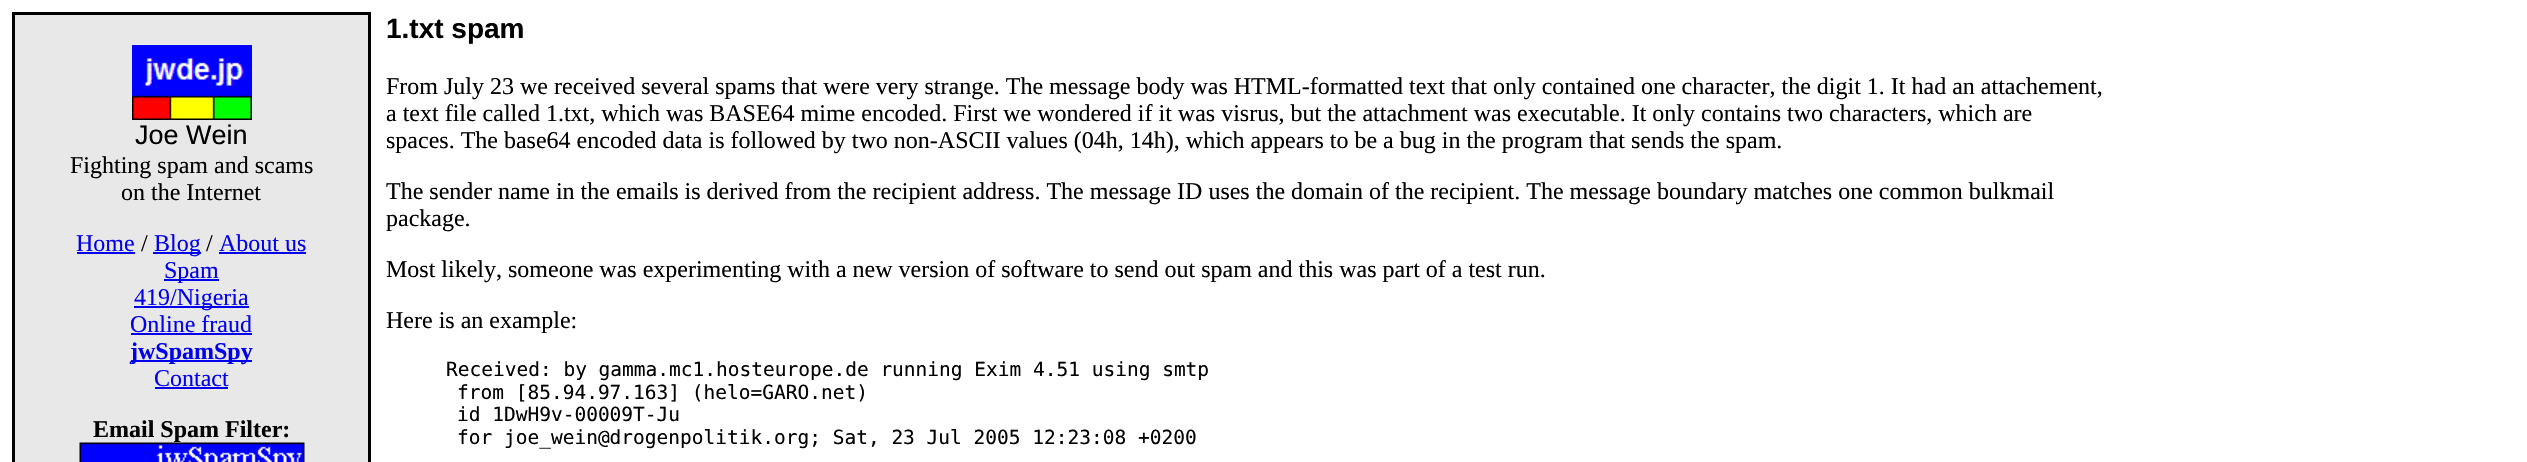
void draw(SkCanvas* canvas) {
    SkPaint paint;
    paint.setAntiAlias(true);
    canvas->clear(0xFFFFFFFF);
    paint.setColor(0xFF000000);
    canvas->drawRect(SkRect::MakeXYWH(12, 12, 359, 450), paint);
    paint.setColor(0xFFE8E8E8);
    canvas->drawRect(SkRect::MakeXYWH(15, 15, 353, 447), paint);
    canvas->drawImageRect(SkImages::DeferredFromEncodedData(SkData::MakeFromFileName("img1.png")), SkRect::MakeXYWH(132, 45, 120, 75), SkSamplingOptions());
    SkFont font1(fontMgr->matchFamilyStyle("Liberation Sans", SkFontStyle::Normal()), 27);
    font1.setSubpixel(true);
    paint.setColor(0xFF000000);
    canvas->drawString("Joe Wein", 135, 144, font1, paint);
    SkFont font2(fontMgr->matchFamilyStyle("Liberation Serif", SkFontStyle::Normal()), 24);
    font2.setSubpixel(true);
    canvas->drawString("Fighting spam and scams", 70, 173, font2, paint);
    canvas->drawString("on the Internet", 121, 200, font2, paint);
    paint.setColor(0xFF0000EE);
    canvas->drawString("Home", 76, 251, font2, paint);
    canvas->drawRect(SkRect::MakeXYWH(77, 252, 58, 2), paint);
    paint.setColor(0xFF000000);
    canvas->drawString("/", 141, 251, font2, paint);
    paint.setColor(0xFF0000EE);
    canvas->drawRect(SkRect::MakeXYWH(153, 252, 48, 2), paint);
    canvas->drawString("Blog", 154, 251, font2, paint);
    paint.setColor(0xFF000000);
    canvas->drawString("/", 206, 251, font2, paint);
    paint.setColor(0xFF0000EE);
    canvas->drawString("About us", 219, 251, font2, paint);
    canvas->drawRect(SkRect::MakeXYWH(219, 252, 87, 2), paint);
    canvas->drawRect(SkRect::MakeXYWH(164, 279, 55, 2), paint);
    canvas->drawString("Spam", 164, 278, font2, paint);
    canvas->drawRect(SkRect::MakeXYWH(134, 306, 115, 2), paint);
    canvas->drawString("419/Nigeria", 134, 305, font2, paint);
    canvas->drawString("Online fraud", 130, 332, font2, paint);
    canvas->drawRect(SkRect::MakeXYWH(131, 333, 121, 2), paint);
    canvas->drawRect(SkRect::MakeXYWH(131, 360, 121, 2), paint);
    SkFont font3(fontMgr->matchFamilyStyle("Liberation Serif", SkFontStyle::Bold()), 24);
    font3.setSubpixel(true);
    canvas->drawString("jwSpamSpy", 130, 359, font3, paint);
    canvas->drawString("Contact", 154, 386, font2, paint);
    canvas->drawRect(SkRect::MakeXYWH(155, 387, 73, 2), paint);
    paint.setColor(0xFF000000);
    canvas->drawString("Email Spam Filter:", 93, 437, font3, paint);
    canvas->drawImageRect(SkImages::DeferredFromEncodedData(SkData::MakeFromFileName("img2.png")), SkRect::MakeXYWH(79, 442, 226, 20), SkSamplingOptions());
    SkFont font4(fontMgr->matchFamilyStyle("Liberation Sans", SkFontStyle::Bold()), 28);
    font4.setSubpixel(true);
    canvas->drawString("1.txt spam", 386, 38, font4, paint);
    canvas->drawString("From July 23 we received several spams that were very strange. The message body was HTML-formatted text that only contained one character, the digit 1. It had an attachement,", 386, 94, font2, paint);
    canvas->drawString("a text file called 1.txt, which was BASE64 mime encoded. First we wondered if it was visrus, but the attachment was executable. It only contains two characters, which are", 386, 121, font2, paint);
    canvas->drawString("spaces. The base64 encoded data is followed by two non-ASCII values (04h, 14h), which appears to be a bug in the program that sends the spam.", 386, 148, font2, paint);
    canvas->drawString("The sender name in the emails is derived from the recipient address. The message ID uses the domain of the recipient. The message boundary matches one common bulkmail", 386, 199, font2, paint);
    canvas->drawString("package.", 386, 226, font2, paint);
    canvas->drawString("Most likely, someone was experimenting with a new version of software to send out spam and this was part of a test run.", 386, 277, font2, paint);
    canvas->drawString("Here is an example:", 386, 328, font2, paint);
    SkFont font5(fontMgr->matchFamilyStyle("DejaVu Sans Mono", SkFontStyle::Normal()), 19.5f);
    font5.setSubpixel(true);
    canvas->drawString("Received: by gamma.mc1.hosteurope.de running Exim 4.51 using smtp", 446, 376, font5, paint);
    canvas->drawString("from [85.94.97.163] (helo=GARO.net)", 457, 399, font5, paint);
    canvas->drawString("id 1DwH9v-00009T-Ju", 457, 421, font5, paint);
    canvas->drawString("for joe_wein@drogenpolitik.org; Sat, 23 Jul 2005 12:23:08 +0200", 457, 444, font5, paint);
}
